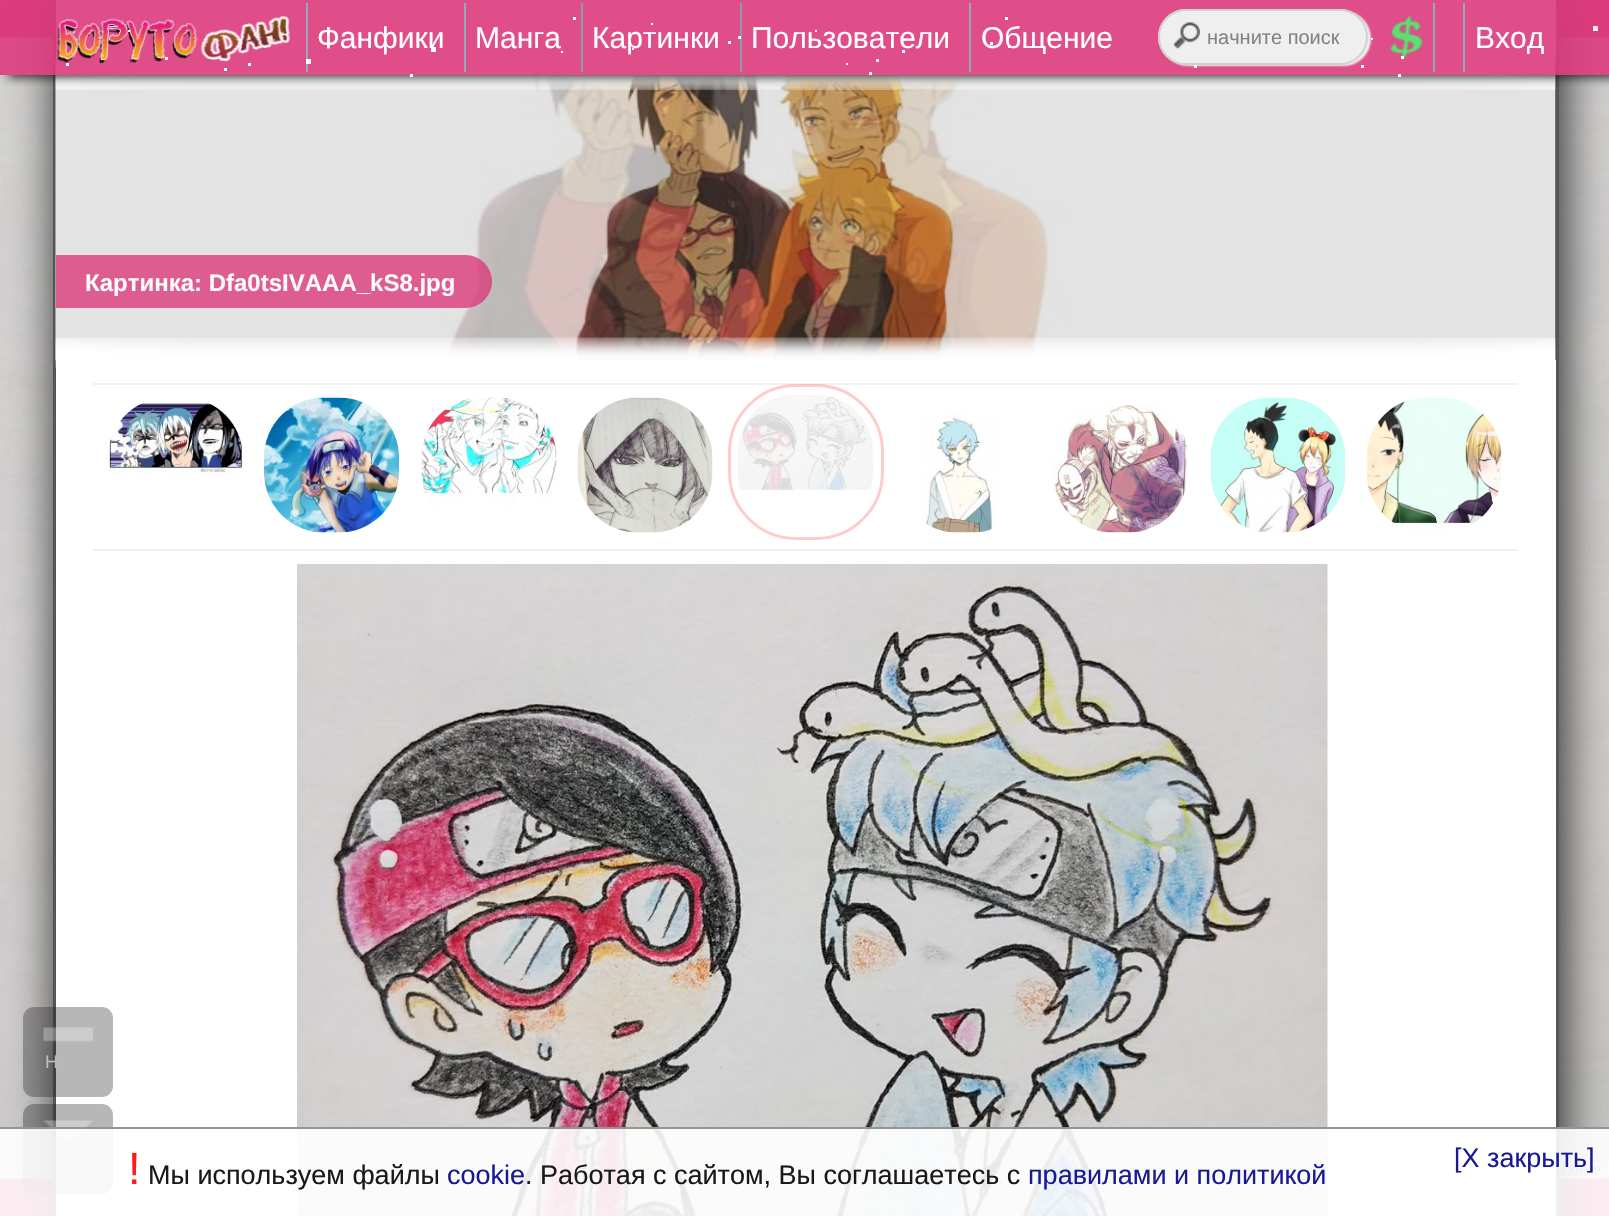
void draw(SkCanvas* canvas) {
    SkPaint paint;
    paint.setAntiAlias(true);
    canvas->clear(0xFFDB3B7B);
    canvas->drawImageRect(SkImages::DeferredFromEncodedData(SkData::MakeFromFileName("img1.png")), SkRect::MakeXYWH(0, 36, 1609, 1144), SkSamplingOptions());
    paint.setColor(0xFF222222);
    paint.setMaskFilter(SkMaskFilter::MakeBlur(kNormal_SkBlurStyle, 22.5f));
    canvas->drawRect(SkRect::MakeXYWH(57, 5, 1506, 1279), paint);
    paint.setMaskFilter(nullptr);
    paint.setColor(0xFFFFFFFF);
    canvas->drawRect(SkRect::MakeXYWH(56, 0, 1500, 1216), paint);
    paint.setColor(0xFF555555);
    canvas->drawRect(SkRect::MakeXYWH(1556, 0, 3, 1216), paint);
    canvas->drawRect(SkRect::MakeXYWH(53, 0, 3, 1216), paint);
    paint.setColor(0xFF000000);
    canvas->drawRect(SkRect::MakeXYWH(56, 60, 1500, 300), paint);
    canvas->drawImageRect(SkImages::DeferredFromEncodedData(SkData::MakeFromFileName("img5.png")), SkRect::MakeXYWH(55, 60, 1501, 300), SkSamplingOptions());
    canvas->drawImageRect(SkImages::DeferredFromEncodedData(SkData::MakeFromFileName("img6.png")), SkRect::MakeXYWH(55, 60, 1501, 300), SkSamplingOptions());
    canvas->drawImageRect(SkImages::DeferredFromEncodedData(SkData::MakeFromFileName("img7.png")), SkRect::MakeXYWH(55, 60, 1501, 30), SkSamplingOptions());
    canvas->save();
    canvas->clipRect(SkRect::MakeXYWH(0, 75, 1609, 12));
    paint.setColor(0xE6111111);
    paint.setMaskFilter(SkMaskFilter::MakeBlur(kNormal_SkBlurStyle, 5));
    canvas->drawRect(SkRect::MakeXYWH(8, 2, 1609, 75), paint);
    paint.setMaskFilter(nullptr);
    canvas->restore();
    paint.setColor(0xE6DB3B7B);
    canvas->drawRect(SkRect::MakeXYWH(0, 0, 1609, 75), paint);
    paint.setColor(0xFFFFFFFF);
    canvas->drawRect(SkRect::MakeXYWH(573, 17, 3, 3), paint);
    canvas->drawRect(SkRect::MakeXYWH(1005, 17, 3, 3), paint);
    canvas->drawRect(SkRect::MakeXYWH(651, 23, 2, 2), paint);
    canvas->drawImageRect(SkImages::DeferredFromEncodedData(SkData::MakeFromFileName("img2.png")), SkRect::MakeXYWH(57, 16, 233, 48), SkSamplingOptions());
    canvas->drawRect(SkRect::MakeXYWH(128, 30, 2, 2), paint);
    SkFont font1(fontMgr->matchFamilyStyle("Liberation Sans", SkFontStyle::Normal()), 30);
    font1.setSubpixel(true);
    canvas->drawString("Фанфики", 317, 48, font1, paint);
    paint.setColor(0xFF92A9C0);
    canvas->drawRect(SkRect::MakeXYWH(306, 3, 2, 69), paint);
    paint.setColor(0xFFFFFFFF);
    canvas->drawString("Манга", 475, 48, font1, paint);
    paint.setColor(0xFF92A9C0);
    canvas->drawRect(SkRect::MakeXYWH(464, 3, 2, 69), paint);
    paint.setColor(0xFFFFFFFF);
    canvas->drawString("Картинки", 592, 48, font1, paint);
    paint.setColor(0xFF8F98B4);
    canvas->drawRect(SkRect::MakeXYWH(581, 3, 2, 69), paint);
    paint.setColor(0xFFFFFFFF);
    canvas->drawString("Пользователи", 751, 48, font1, paint);
    paint.setColor(0xFF8F98B4);
    canvas->drawRect(SkRect::MakeXYWH(740, 3, 2, 69), paint);
    paint.setColor(0xFFFFFFFF);
    canvas->drawString("Общение", 981, 48, font1, paint);
    paint.setColor(0xFF92A9C0);
    canvas->drawRect(SkRect::MakeXYWH(969, 3, 2, 69), paint);
    paint.setColor(0xFFF0F0F0);
    paint.setMaskFilter(SkMaskFilter::MakeBlur(kNormal_SkBlurStyle, 1));
    canvas->drawRoundRect(SkRect::MakeXYWH(1161, 11, 210, 55), 27.5f, 27.5f, paint);
    paint.setMaskFilter(nullptr);
    paint.setColor(0xFFEFEFEF);
    canvas->drawRoundRect(SkRect::MakeXYWH(1158, 9, 210, 56), 28, 28, paint);
    canvas->drawImageRect(SkImages::DeferredFromEncodedData(SkData::MakeFromFileName("img3.png")), SkRect::MakeXYWH(1173, 22, 27, 27), SkSamplingOptions());
    paint.setStyle(SkPaint::kStroke_Style);
    paint.setStrokeWidth(2);
    paint.setColor(0xFFD1D1D1);
    canvas->drawRoundRect(SkRect::MakeXYWH(1159, 10, 208, 54), 27, 27, paint);
    SkFont font2(fontMgr->matchFamilyStyle("Liberation Sans", SkFontStyle::Normal()), 20);
    font2.setSubpixel(true);
    paint.setStyle(SkPaint::kFill_Style);
    paint.setColor(0xFF838383);
    canvas->drawString("начните поиск", 1207, 44, font2, paint);
    paint.setColor(0xFF92A9C0);
    canvas->drawRect(SkRect::MakeXYWH(1433, 3, 2, 69), paint);
    canvas->drawImageRect(SkImages::DeferredFromEncodedData(SkData::MakeFromFileName("img4.png")), SkRect::MakeXYWH(1389, 15, 35, 45), SkSamplingOptions());
    paint.setColor(0xFFFFFFFF);
    canvas->drawString("Вход", 1475, 48, font1, paint);
    paint.setColor(0xFF92A9C0);
    canvas->drawRect(SkRect::MakeXYWH(1463, 3, 2, 69), paint);
    paint.setColor(0xFFFBEBF2);
    canvas->drawRect(SkRect::MakeXYWH(1593, 26, 5, 5), paint);
    paint.setColor(0xFFFFFFFF);
    canvas->drawRect(SkRect::MakeXYWH(815, 30, 2, 2), paint);
    canvas->drawRect(SkRect::MakeXYWH(239, 39, 2, 2), paint);
    canvas->drawRect(SkRect::MakeXYWH(738, 36, 3, 3), paint);
    canvas->drawRect(SkRect::MakeXYWH(1371, 38, 2, 2), paint);
    canvas->drawRect(SkRect::MakeXYWH(728, 41, 3, 3), paint);
    canvas->drawRect(SkRect::MakeXYWH(990, 42, 3, 3), paint);
    canvas->drawRect(SkRect::MakeXYWH(1530, 42, 3, 3), paint);
    canvas->drawRect(SkRect::MakeXYWH(1008, 45, 3, 3), paint);
    canvas->drawRect(SkRect::MakeXYWH(431, 47, 5, 5), paint);
    canvas->drawRect(SkRect::MakeXYWH(632, 48, 2, 2), paint);
    canvas->drawRect(SkRect::MakeXYWH(561, 51, 2, 2), paint);
    canvas->drawRect(SkRect::MakeXYWH(902, 50, 3, 3), paint);
    canvas->drawRect(SkRect::MakeXYWH(165, 57, 3, 3), paint);
    canvas->drawRect(SkRect::MakeXYWH(1401, 56, 3, 3), paint);
    canvas->drawRect(SkRect::MakeXYWH(306, 59, 5, 5), paint);
    paint.setColor(0xFFFCEDF3);
    canvas->drawRect(SkRect::MakeXYWH(876, 59, 3, 3), paint);
    paint.setColor(0xFFFFFFFF);
    canvas->drawRect(SkRect::MakeXYWH(66, 63, 3, 3), paint);
    canvas->drawRect(SkRect::MakeXYWH(248, 63, 3, 3), paint);
    canvas->drawRect(SkRect::MakeXYWH(846, 63, 2, 2), paint);
    canvas->drawRect(SkRect::MakeXYWH(1194, 65, 3, 3), paint);
    canvas->drawRect(SkRect::MakeXYWH(1361, 65, 3, 3), paint);
    canvas->drawRect(SkRect::MakeXYWH(224, 68, 3, 3), paint);
    paint.setColor(0xFFFCEDF3);
    canvas->drawRect(SkRect::MakeXYWH(869, 72, 3, 3), paint);
    paint.setColor(0xFFFFFFFF);
    canvas->drawRect(SkRect::MakeXYWH(410, 74, 3, 3), paint);
    canvas->drawRect(SkRect::MakeXYWH(1398, 74, 3, 3), paint);
    paint.setColor(0xCCDB3B7B);
    canvas->drawPath(SkPathBuilder().moveTo(56, 255).lineTo(465.5f, 255).cubicTo(480, 255, 492, 267, 492, 281.5f).cubicTo(492, 296, 480, 308, 465.5f, 308).lineTo(56, 308).close().detach(), paint);
    SkFont font3(fontMgr->matchFamilyStyle("Liberation Sans", SkFontStyle::Bold()), 24);
    font3.setSubpixel(true);
    paint.setColor(0xFFF9F9F9);
    canvas->drawString("Картинка: Dfa0tsIVAAA_kS8.jpg", 85, 291, font3, paint);
    canvas->drawImageRect(SkImages::DeferredFromEncodedData(SkData::MakeFromFileName("img8.png")), SkRect::MakeXYWH(55, 337, 1501, 31), SkSamplingOptions());
    paint.setColor(0xFFF1F1F1);
    canvas->drawRect(SkRect::MakeXYWH(93, 383, 1425, 2), paint);
    canvas->drawRect(SkRect::MakeXYWH(93, 549, 1425, 2), paint);
    paint.setStyle(SkPaint::kStroke_Style);
    paint.setStrokeWidth(3);
    paint.setColor(0x33FF0000);
    canvas->drawRoundRect(SkRect::MakeXYWH(729.5f, 385.5f, 153, 153), 66.5f, 66.5f, paint);
    canvas->drawImageRect(SkImages::DeferredFromEncodedData(SkData::MakeFromFileName("img9.png")), SkRect::MakeXYWH(108, 400, 135, 75), SkSamplingOptions());
    canvas->drawImageRect(SkImages::DeferredFromEncodedData(SkData::MakeFromFileName("img10.png")), SkRect::MakeXYWH(264, 397, 135, 136), SkSamplingOptions());
    canvas->drawImageRect(SkImages::DeferredFromEncodedData(SkData::MakeFromFileName("img11.png")), SkRect::MakeXYWH(421, 397, 136, 109), SkSamplingOptions());
    canvas->drawImageRect(SkImages::DeferredFromEncodedData(SkData::MakeFromFileName("img12.png")), SkRect::MakeXYWH(577, 397, 136, 136), SkSamplingOptions());
    canvas->drawImageRect(SkImages::DeferredFromEncodedData(SkData::MakeFromFileName("img13.png")), SkRect::MakeXYWH(738, 395, 135, 95), SkSamplingOptions());
    canvas->drawImageRect(SkImages::DeferredFromEncodedData(SkData::MakeFromFileName("img14.png")), SkRect::MakeXYWH(922, 413, 75, 120), SkSamplingOptions());
    canvas->drawImageRect(SkImages::DeferredFromEncodedData(SkData::MakeFromFileName("img15.png")), SkRect::MakeXYWH(1053, 404, 135, 129), SkSamplingOptions());
    canvas->drawImageRect(SkImages::DeferredFromEncodedData(SkData::MakeFromFileName("img16.png")), SkRect::MakeXYWH(1210, 397, 136, 136), SkSamplingOptions());
    canvas->drawImageRect(SkImages::DeferredFromEncodedData(SkData::MakeFromFileName("img17.png")), SkRect::MakeXYWH(1366, 397, 136, 135), SkSamplingOptions());
    canvas->drawImageRect(SkImages::DeferredFromEncodedData(SkData::MakeFromFileName("img18.png")), SkRect::MakeXYWH(297, 564, 1031, 652), SkSamplingOptions());
    paint.setStyle(SkPaint::kFill_Style);
    paint.setColor(0x4D111111);
    canvas->drawRoundRect(SkRect::MakeXYWH(23, 1007, 90, 90), 11, 11, paint);
    canvas->drawImageRect(SkImages::DeferredFromEncodedData(SkData::MakeFromFileName("img19.png")), SkRect::MakeXYWH(43, 1027, 51, 15), SkSamplingOptions());
    SkFont font4(fontMgr->matchFamilyStyle("Liberation Sans", SkFontStyle::Normal()), 18);
    font4.setSubpixel(true);
    paint.setColor(0xFFBCBCBC);
    canvas->drawString("Н", 45, 1068, font4, paint);
    paint.setColor(0x4D111111);
    canvas->drawRoundRect(SkRect::MakeXYWH(23, 1104, 90, 90), 11, 11, paint);
    canvas->drawImageRect(SkImages::DeferredFromEncodedData(SkData::MakeFromFileName("img20.png")), SkRect::MakeXYWH(43, 1120, 50, 24), SkSamplingOptions());
    paint.setColor(0xE6FFFFFF);
    canvas->drawRect(SkRect::MakeXYWH(0, 1127, 1609, 89), paint);
    paint.setColor(0xE6888888);
    canvas->drawRect(SkRect::MakeXYWH(0, 1127, 1609, 2), paint);
    SkFont font5(fontMgr->matchFamilyStyle("Liberation Sans", SkFontStyle::Normal()), 45);
    font5.setSubpixel(true);
    paint.setColor(0xFFFF1A1A);
    canvas->drawString("!", 128, 1184, font5, paint);
    SkFont font6(fontMgr->matchFamilyStyle("Liberation Sans", SkFontStyle::Normal()), 27);
    font6.setSubpixel(true);
    paint.setColor(0xFF191919);
    canvas->drawString("Мы используем файлы", 148, 1184, font6, paint);
    paint.setColor(0xFF191994);
    canvas->drawString("cookie", 447, 1184, font6, paint);
    paint.setColor(0xFF191919);
    canvas->drawString(". Работая с сайтом, Вы соглашаетесь с", 525, 1184, font6, paint);
    paint.setColor(0xFF191994);
    canvas->drawString("правилами и политикой", 1028, 1184, font6, paint);
    canvas->drawString("[X закрыть]", 1454, 1167, font6, paint);
}
